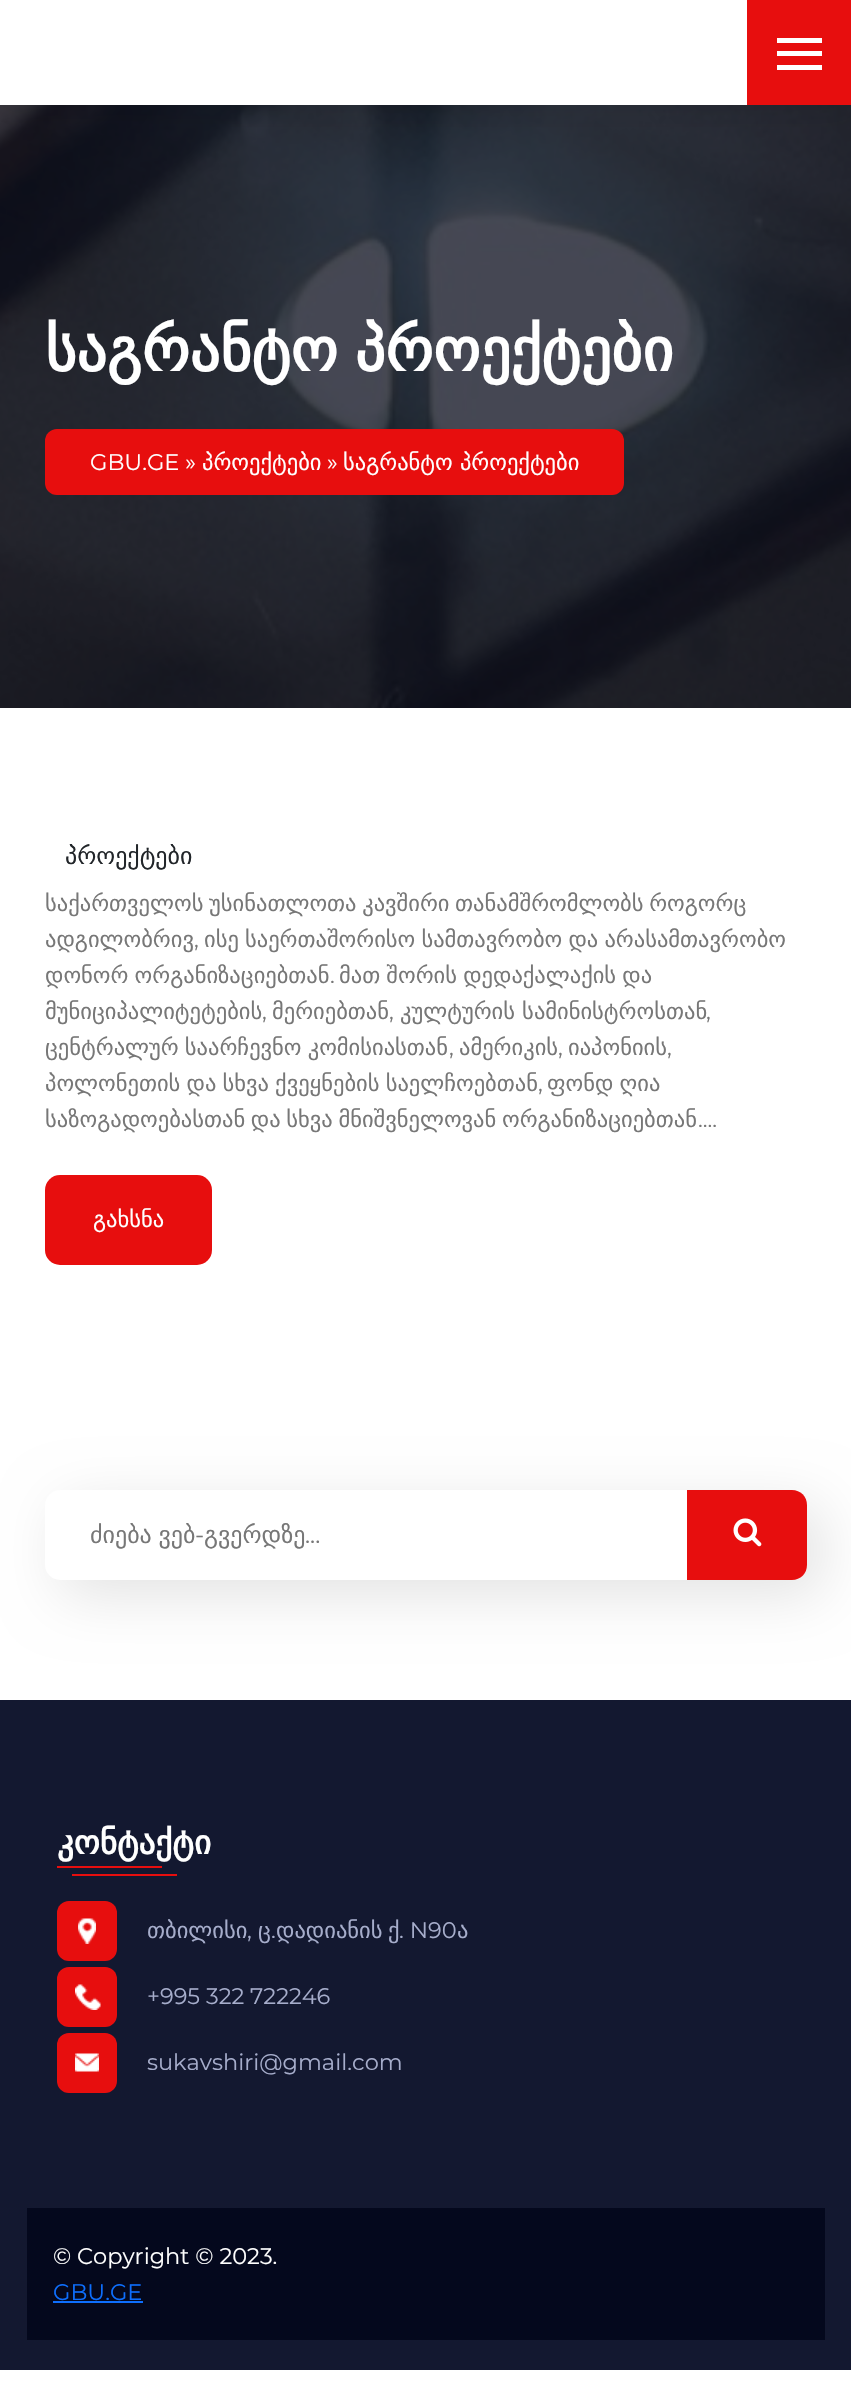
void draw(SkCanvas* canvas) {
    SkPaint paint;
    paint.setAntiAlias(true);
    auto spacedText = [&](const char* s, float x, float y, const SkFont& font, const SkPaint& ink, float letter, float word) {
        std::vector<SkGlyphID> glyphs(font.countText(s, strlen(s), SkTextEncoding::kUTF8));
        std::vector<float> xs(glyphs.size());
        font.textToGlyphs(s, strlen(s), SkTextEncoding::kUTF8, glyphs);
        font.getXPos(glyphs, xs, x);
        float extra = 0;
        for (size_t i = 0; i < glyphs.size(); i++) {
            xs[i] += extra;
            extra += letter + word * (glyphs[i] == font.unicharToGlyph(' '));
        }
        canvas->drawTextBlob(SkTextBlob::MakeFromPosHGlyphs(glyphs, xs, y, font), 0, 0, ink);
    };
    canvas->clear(0xFFFFFFFF);
    canvas->drawImageRect(SkImages::DeferredFromEncodedData(SkData::MakeFromFileName("img1.png")), SkRect::MakeXYWH(0, 105, 851, 603), SkSamplingOptions());
    paint.setColor(0x1A000000);
    paint.setMaskFilter(SkMaskFilter::MakeBlur(kNormal_SkBlurStyle, 15));
    canvas->drawRect(SkRect::MakeXYWH(0, 0, 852, 105), paint);
    paint.setMaskFilter(nullptr);
    paint.setColor(0xFFFFFFFF);
    canvas->drawRect(SkRect::MakeXYWH(0, 0, 747, 105), paint);
    paint.setColor(0xFFE70E0E);
    canvas->drawRect(SkRect::MakeXYWH(747, 0, 104, 105), paint);
    paint.setColor(0xFFFFFFFF);
    canvas->drawRect(SkRect::MakeXYWH(777, 38, 45, 5), paint);
    canvas->drawRect(SkRect::MakeXYWH(777, 51, 45, 5), paint);
    canvas->drawRect(SkRect::MakeXYWH(777, 65, 45, 5), paint);
    SkFont font1(fontMgr->matchFamilyStyle("DejaVu Sans", SkFontStyle::Bold()), 60);
    font1.setSubpixel(true);
    spacedText("საგრანტო პროექტები", 45, 371, font1, paint, 0, -2);
    paint.setColor(0xFFE70E0E);
    canvas->drawRoundRect(SkRect::MakeXYWH(45, 429, 579, 66), 12, 12, paint);
    SkFont font2(fontMgr->matchFamilyStyle("Montserrat", SkFontStyle::Normal()), 22.5f);
    font2.setSubpixel(true);
    paint.setColor(0xFFFFFFFF);
    canvas->drawString("GBU.GE »", 90, 470, font2, paint);
    SkFont font3(fontMgr->matchFamilyStyle("DejaVu Sans", SkFontStyle::Normal()), 22.5f);
    font3.setSubpixel(true);
    canvas->drawString("პროექტები", 202, 470, font3, paint);
    canvas->drawString("»", 327, 470, font2, paint);
    canvas->drawString("საგრანტო პროექტები", 343, 470, font3, paint);
    SkFont font4(fontMgr->matchFamilyStyle("DejaVu Sans", SkFontStyle::Normal()), 24);
    font4.setSubpixel(true);
    paint.setColor(0xFF212529);
    canvas->drawString("პროექტები", 65, 864, font4, paint);
    paint.setColor(0xFF777777);
    spacedText("საქართველოს უსინათლოთა კავშირი თანამშრომლობს როგორც", 45, 911, font3, paint, 0, -1.5f);
    canvas->drawString("ადგილობრივ", 45, 947, font3, paint);
    canvas->drawString(",", 194, 947, font2, paint);
    spacedText("ისე საერთაშორისო სამთავრობო და არასამთავრობო", 204, 947, font3, paint, 0, -1);
    spacedText("დონორ ორგანიზაციებთან", 45, 983, font3, paint, 0, -1);
    canvas->drawString(".", 330, 983, font2, paint);
    spacedText("მათ შორის დედაქალაქის და", 339, 983, font3, paint, 0, -1);
    canvas->drawString("მუნიციპალიტეტების", 45, 1019, font3, paint);
    canvas->drawString(",", 262, 1019, font2, paint);
    canvas->drawString("მერიებთან", 272, 1019, font3, paint);
    canvas->drawString(",", 389, 1019, font2, paint);
    canvas->drawString("კულტურის სამინისტროსთან", 400, 1019, font3, paint);
    canvas->drawString(",", 706, 1019, font2, paint);
    spacedText("ცენტრალურ საარჩევნო კომისიასთან", 45, 1055, font3, paint, 0, -1);
    canvas->drawString(",", 449, 1055, font2, paint);
    canvas->drawString("ამერიკის", 459, 1055, font3, paint);
    canvas->drawString(",", 558, 1055, font2, paint);
    canvas->drawString("იაპონიის", 568, 1055, font3, paint);
    canvas->drawString(",", 667, 1055, font2, paint);
    spacedText("პოლონეთის და სხვა ქვეყნების საელჩოებთან", 45, 1091, font3, paint, 0, -1);
    canvas->drawString(",", 538, 1091, font2, paint);
    spacedText("ფონდ ღია", 547, 1091, font3, paint, 0, -1);
    spacedText("საზოგადოებასთან და სხვა მნიშვნელოვან ორგანიზაციებთან", 45, 1127, font3, paint, 0, -1.5f);
    canvas->drawString("....", 698, 1127, font2, paint);
    paint.setColor(0xFFE70E0E);
    canvas->drawRoundRect(SkRect::MakeXYWH(45, 1175, 167, 90), 15, 15, paint);
    paint.setColor(0xFFFFFFFF);
    canvas->drawString("გახსნა", 93, 1227, font3, paint);
    paint.setColor(0x1C000000);
    paint.setMaskFilter(SkMaskFilter::MakeBlur(kNormal_SkBlurStyle, 28.5f));
    canvas->drawRoundRect(SkRect::MakeXYWH(60, 1505, 762, 90), 15, 15, paint);
    paint.setMaskFilter(nullptr);
    paint.setColor(0xFFFFFFFF);
    canvas->drawRoundRect(SkRect::MakeXYWH(45, 1490, 762, 90), 15, 15, paint);
    paint.setColor(0xFF777777);
    spacedText("ძიება ვებ", 90, 1543, font4, paint, 0, -1);
    SkFont font5(fontMgr->matchFamilyStyle("Montserrat", SkFontStyle::Normal()), 24);
    font5.setSubpixel(true);
    canvas->drawString("-", 195, 1543, font5, paint);
    canvas->drawString("გვერდზე", 204, 1543, font4, paint);
    canvas->drawString("...", 305, 1543, font5, paint);
    paint.setColor(0xFFE70E0E);
    canvas->drawPath(SkPathBuilder().moveTo(687, 1490).lineTo(792, 1490).cubicTo(800.5f, 1490, 807, 1496.5f, 807, 1505).lineTo(807, 1565).cubicTo(807, 1573.5f, 800.5f, 1580, 792, 1580).lineTo(687, 1580).close().detach(), paint);
    canvas->drawImageRect(SkImages::DeferredFromEncodedData(SkData::MakeFromFileName("img2.png")), SkRect::MakeXYWH(733, 1518, 29, 29), SkSamplingOptions());
    paint.setColor(0xFF131830);
    canvas->drawRect(SkRect::MakeXYWH(0, 1700, 851, 670), paint);
    SkFont font6(fontMgr->matchFamilyStyle("DejaVu Sans", SkFontStyle::Bold()), 33);
    font6.setSubpixel(true);
    paint.setColor(0xFFFFFFFF);
    canvas->drawString("კონტაქტი", 57, 1854, font6, paint);
    paint.setColor(0xFFE70E0E);
    canvas->drawRect(SkRect::MakeXYWH(57, 1866, 105, 2), paint);
    canvas->drawRect(SkRect::MakeXYWH(72, 1874, 105, 2), paint);
    canvas->drawRoundRect(SkRect::MakeXYWH(57, 1901, 60, 60), 12, 12, paint);
    canvas->drawImageRect(SkImages::DeferredFromEncodedData(SkData::MakeFromFileName("img3.png")), SkRect::MakeXYWH(78, 1918, 18, 26), SkSamplingOptions());
    paint.setColor(0xFFA6ADCB);
    canvas->drawString("თბილისი", 147, 1938, font3, paint);
    canvas->drawString(",", 247, 1938, font2, paint);
    canvas->drawString("ც", 258, 1938, font3, paint);
    canvas->drawString(".", 271, 1938, font2, paint);
    canvas->drawString("დადიანის", 276, 1938, font3, paint);
    canvas->drawString("ქ", 388, 1938, font3, paint);
    canvas->drawString(". N90", 399, 1938, font2, paint);
    canvas->drawString("ა", 457, 1938, font3, paint);
    paint.setColor(0xFFE70E0E);
    canvas->drawRoundRect(SkRect::MakeXYWH(57, 1967, 60, 60), 12, 12, paint);
    canvas->drawImageRect(SkImages::DeferredFromEncodedData(SkData::MakeFromFileName("img4.png")), SkRect::MakeXYWH(75, 1984, 26, 26), SkSamplingOptions());
    paint.setColor(0xFFA6ADCB);
    canvas->drawString("+995 322 722246", 147, 2004, font2, paint);
    paint.setColor(0xFFE70E0E);
    canvas->drawRoundRect(SkRect::MakeXYWH(57, 2033, 60, 60), 12, 12, paint);
    canvas->drawImageRect(SkImages::DeferredFromEncodedData(SkData::MakeFromFileName("img5.png")), SkRect::MakeXYWH(75, 2053, 24, 19), SkSamplingOptions());
    paint.setColor(0xFFA6ADCB);
    canvas->drawString("sukavshiri@gmail.com", 147, 2070, font2, paint);
    paint.setColor(0xFF04081D);
    canvas->drawRect(SkRect::MakeXYWH(27, 2208, 798, 132), paint);
    paint.setColor(0xFFFFFFFF);
    canvas->drawString("© Copyright © 2023.", 53, 2264, font2, paint);
    paint.setColor(0xFF0D6EFD);
    canvas->drawString("GBU.GE", 53, 2300, font2, paint);
    canvas->drawRect(SkRect::MakeXYWH(53, 2301, 90, 2), paint);
}
